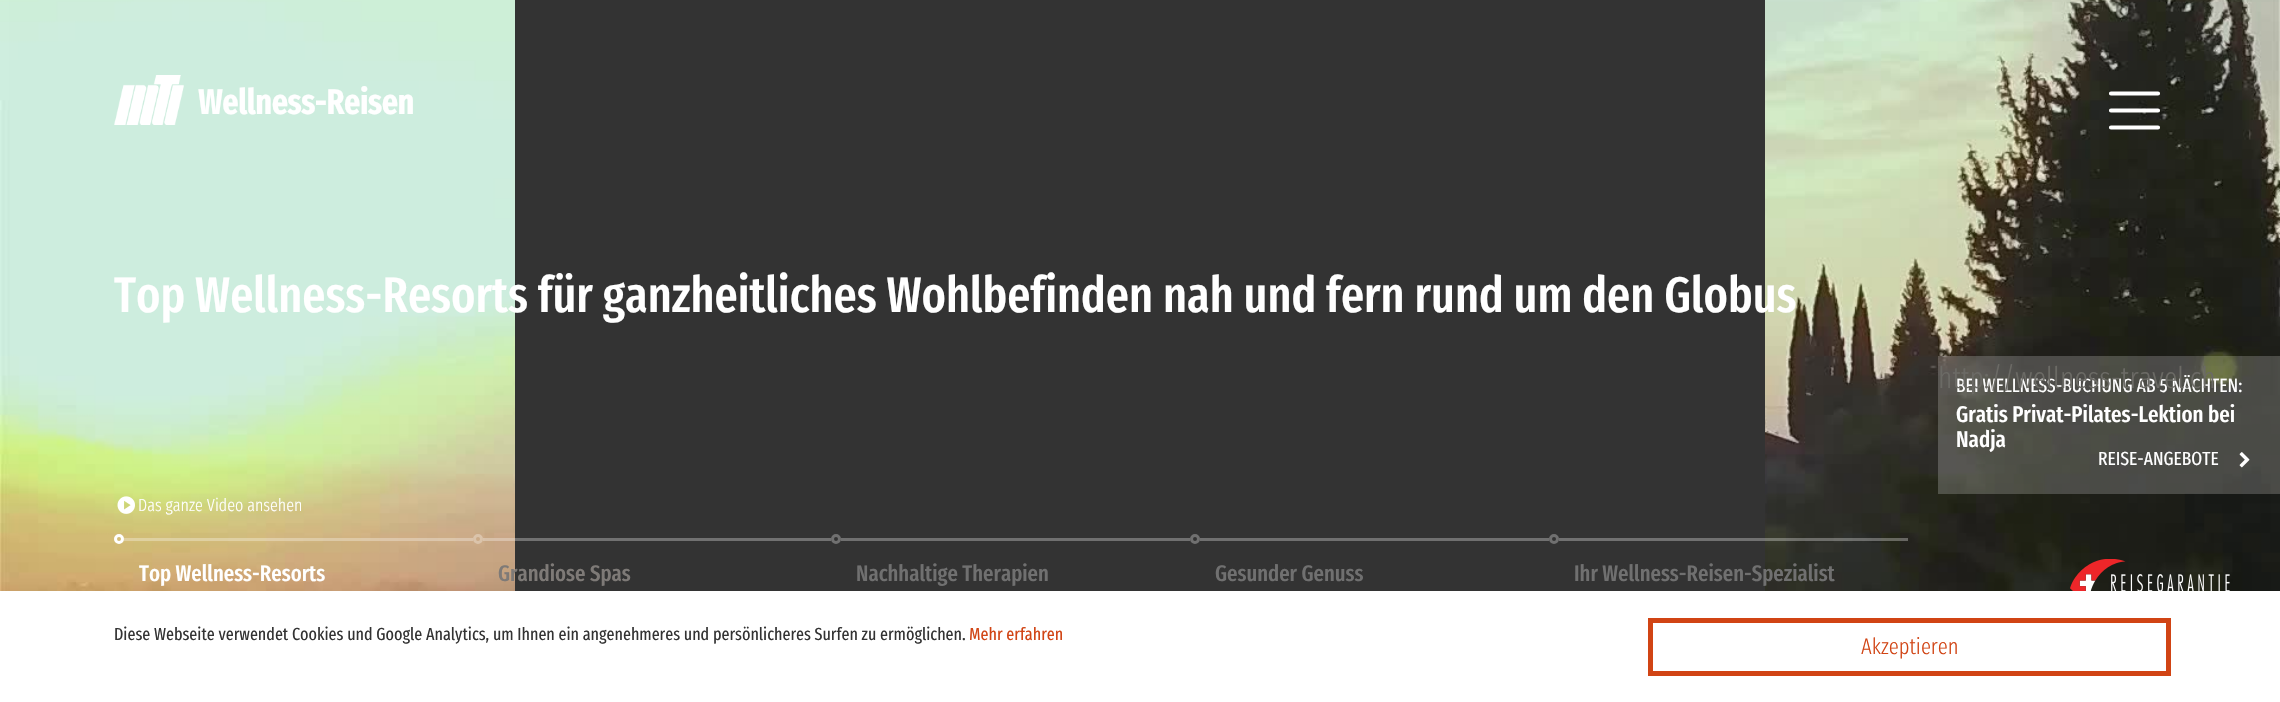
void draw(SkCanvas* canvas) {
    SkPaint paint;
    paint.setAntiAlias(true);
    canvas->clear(0xFFFFFFFF);
    canvas->drawImageRect(SkImages::DeferredFromEncodedData(SkData::MakeFromFileName("img1.png")), SkRect::MakeXYWH(0, 0, 2280, 591), SkSamplingOptions());
    paint.setColor(0xFF333333);
    canvas->drawRect(SkRect::MakeXYWH(515, 0, 1250, 591), paint);
    canvas->drawImageRect(SkImages::DeferredFromEncodedData(SkData::MakeFromFileName("img2.png")), SkRect::MakeXYWH(114, 75, 70, 50), SkSamplingOptions());
    SkFont font1(fontMgr->matchFamilyStyle("Fira Sans Extra Condensed", SkFontStyle::Bold()), 34.25f);
    font1.setSubpixel(true);
    paint.setColor(0xFFFFFFFF);
    canvas->drawString("Wellness-Reisen", 198, 114, font1, paint);
    paint.setStyle(SkPaint::kStroke_Style);
    paint.setStrokeWidth(4.2f);
    paint.setStrokeCap(SkPaint::kRound_Cap);
    canvas->drawPath(SkPathBuilder().moveTo(2111, 93.5f).lineTo(2158, 93.5f).moveTo(2111, 110.5f).lineTo(2158, 110.5f).moveTo(2111, 127.5f).lineTo(2158, 127.5f).detach(), paint);
    SkFont font2(fontMgr->matchFamilyStyle("Fira Sans Extra Condensed", SkFontStyle(500, SkFontStyle::kNormal_Width, SkFontStyle::kUpright_Slant)), 50);
    font2.setSubpixel(true);
    paint.setStyle(SkPaint::kFill_Style);
    canvas->drawString("Top Wellness-Resorts für ganzheitliches Wohlbefinden nah und fern rund um den Globus", 114, 312, font2, paint);
    paint.setColor(0x33FFFFFF);
    canvas->drawRect(SkRect::MakeXYWH(1938, 356, 342, 138), paint);
    SkFont font3(fontMgr->matchFamilyStyle("Fira Sans Extra Condensed", SkFontStyle::Normal()), 19.1f);
    font3.setSubpixel(true);
    paint.setColor(0xFFFFFFFF);
    canvas->drawString("BEI WELLNESS-BUCHUNG AB 5 NÄCHTEN:", 1956, 392, font3, paint);
    SkFont font4(fontMgr->matchFamilyStyle("Fira Sans Extra Condensed", SkFontStyle(300, SkFontStyle::kNormal_Width, SkFontStyle::kUpright_Slant)), 30);
    font4.setSubpixel(true);
    paint.setColor(0xFF6B6A65);
    canvas->drawString("http://wellness-travel.ch", 1938, 388, font4, paint);
    SkFont font5(fontMgr->matchFamilyStyle("Fira Sans Extra Condensed", SkFontStyle(500, SkFontStyle::kNormal_Width, SkFontStyle::kUpright_Slant)), 22.75f);
    font5.setSubpixel(true);
    paint.setColor(0xFFFFFFFF);
    canvas->drawString("Gratis Privat-Pilates-Lektion bei", 1956, 422, font5, paint);
    canvas->drawString("Nadja", 1956, 447, font5, paint);
    SkFont font6(fontMgr->matchFamilyStyle("Fira Sans Extra Condensed", SkFontStyle::Normal()), 19);
    font6.setSubpixel(true);
    canvas->drawString("REISE-ANGEBOTE", 2098, 465, font6, paint);
    canvas->drawImageRect(SkImages::DeferredFromEncodedData(SkData::MakeFromFileName("img3.png")), SkRect::MakeXYWH(2239, 452, 11, 16), SkSamplingOptions());
    canvas->drawImageRect(SkImages::DeferredFromEncodedData(SkData::MakeFromFileName("img4.png")), SkRect::MakeXYWH(117, 496, 18, 18), SkSamplingOptions());
    SkFont font7(fontMgr->matchFamilyStyle("Fira Sans Extra Condensed", SkFontStyle(300, SkFontStyle::kNormal_Width, SkFontStyle::kUpright_Slant)), 17.5f);
    font7.setSubpixel(true);
    canvas->drawString("Das ganze Video ansehen", 138, 511, font7, paint);
    paint.setColor(0x4DFFFFFF);
    canvas->drawRect(SkRect::MakeXYWH(124, 538, 349, 3), paint);
    paint.setStyle(SkPaint::kStroke_Style);
    paint.setStrokeWidth(3);
    paint.setStrokeCap(SkPaint::kButt_Cap);
    paint.setColor(0xFFFFFFFF);
    canvas->drawCircle(119, 539, 3.5f, paint);
    SkFont font8(fontMgr->matchFamilyStyle("Fira Sans Extra Condensed", SkFontStyle(500, SkFontStyle::kNormal_Width, SkFontStyle::kUpright_Slant)), 22.5f);
    font8.setSubpixel(true);
    paint.setStyle(SkPaint::kFill_Style);
    canvas->drawString("Top Wellness-Resorts", 139, 581, font8, paint);
    paint.setColor(0x4DFFFFFF);
    canvas->drawRect(SkRect::MakeXYWH(483, 538, 348, 3), paint);
    paint.setStyle(SkPaint::kStroke_Style);
    paint.setColor(0xFFDBC4AB);
    canvas->drawCircle(478, 539, 3.5f, paint);
    paint.setStyle(SkPaint::kFill_Style);
    paint.setColor(0xFF7E7A77);
    canvas->drawString("Grandiose Spas", 498, 581, font8, paint);
    paint.setColor(0xFF707070);
    canvas->drawRect(SkRect::MakeXYWH(841, 538, 349, 3), paint);
    paint.setStyle(SkPaint::kStroke_Style);
    canvas->drawCircle(836, 539, 3.5f, paint);
    paint.setStyle(SkPaint::kFill_Style);
    canvas->drawString("Nachhaltige Therapien", 856, 581, font8, paint);
    canvas->drawRect(SkRect::MakeXYWH(1200, 538, 349, 3), paint);
    paint.setStyle(SkPaint::kStroke_Style);
    canvas->drawCircle(1195, 539, 3.5f, paint);
    paint.setStyle(SkPaint::kFill_Style);
    canvas->drawString("Gesunder Genuss", 1215, 581, font8, paint);
    paint.setColor(0x4DFFFFFF);
    canvas->drawRect(SkRect::MakeXYWH(1559, 538, 349, 3), paint);
    paint.setStyle(SkPaint::kStroke_Style);
    paint.setColor(0xFF707070);
    canvas->drawCircle(1554, 539, 3.5f, paint);
    paint.setStyle(SkPaint::kFill_Style);
    canvas->drawString("Ihr Wellness-Reisen-Spezialist", 1574, 581, font8, paint);
    canvas->drawImageRect(SkImages::DeferredFromEncodedData(SkData::MakeFromFileName("img5.png")), SkRect::MakeXYWH(2070, 559, 160, 32), SkSamplingOptions());
    SkFont font9(fontMgr->matchFamilyStyle("Fira Sans Extra Condensed", SkFontStyle::Normal()), 17.5f);
    font9.setSubpixel(true);
    paint.setColor(0xFF333333);
    canvas->drawString("Diese Webseite verwendet Cookies und Google Analytics, um Ihnen ein angenehmeres und persönlicheres Surfen zu ermöglichen.", 114, 640, font9, paint);
    paint.setColor(0xFFD14414);
    canvas->drawString("Mehr erfahren", 969, 640, font9, paint);
    paint.setStyle(SkPaint::kStroke_Style);
    paint.setStrokeWidth(5);
    canvas->drawRect(SkRect::MakeXYWH(1650.5f, 620.5f, 518, 53), paint);
    SkFont font10(fontMgr->matchFamilyStyle("Fira Sans Extra Condensed", SkFontStyle(300, SkFontStyle::kNormal_Width, SkFontStyle::kUpright_Slant)), 22.5f);
    font10.setSubpixel(true);
    paint.setStyle(SkPaint::kFill_Style);
    canvas->drawString("Akzeptieren", 1861, 654, font10, paint);
}
